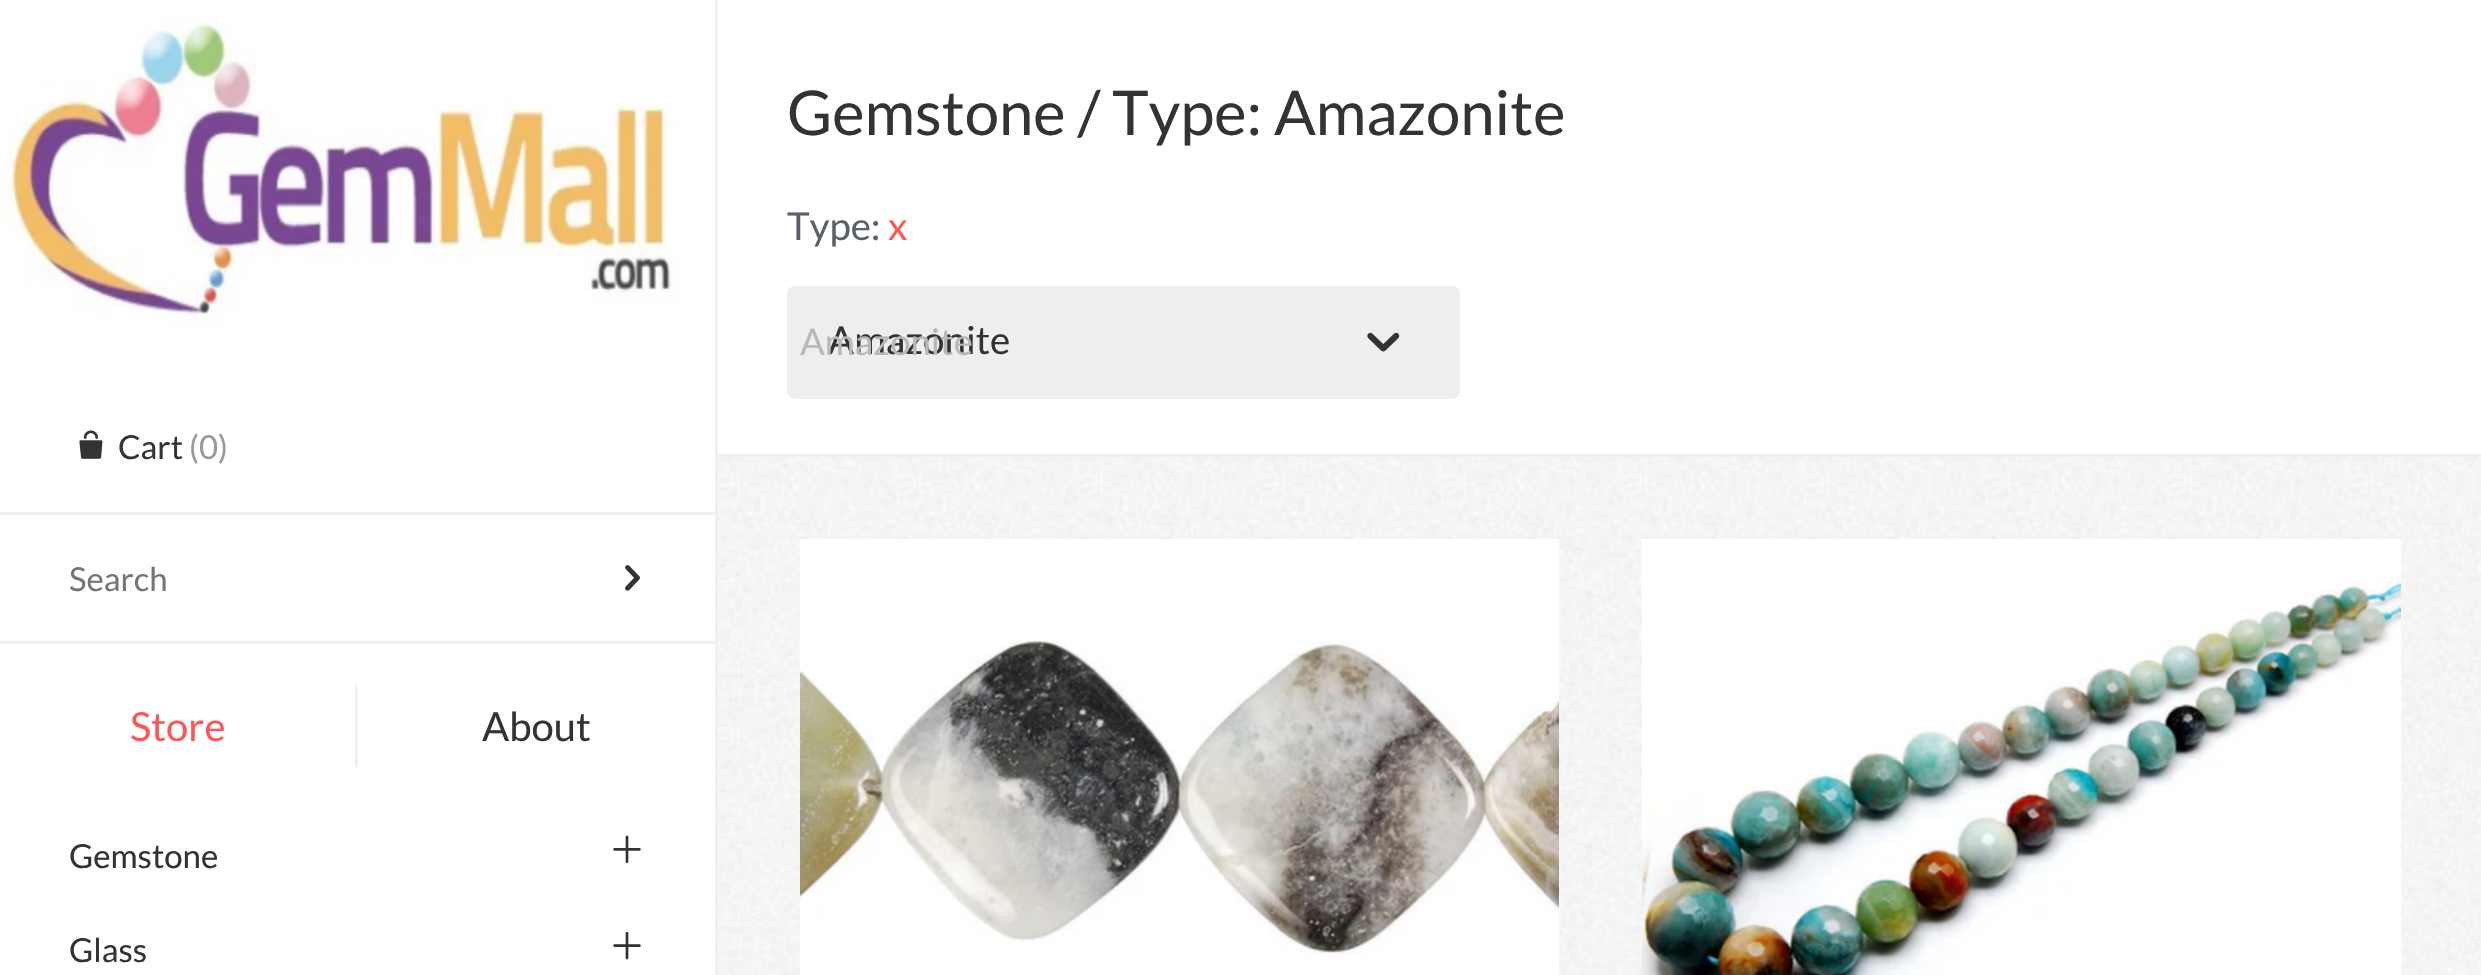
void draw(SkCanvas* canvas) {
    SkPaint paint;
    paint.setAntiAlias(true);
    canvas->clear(0xFFFFFFFF);
    canvas->drawImageRect(SkImages::DeferredFromEncodedData(SkData::MakeFromFileName("img1.png")), SkRect::MakeXYWH(718, 457, 1763, 518), SkSamplingOptions());
    paint.setColor(0xFFF0F0F0);
    canvas->drawRect(SkRect::MakeXYWH(718, 454, 1763, 3), paint);
    SkFont font1(fontMgr->matchFamilyStyle("Lato", SkFontStyle::Normal()), 61.6f);
    font1.setSubpixel(true);
    paint.setColor(0xFF333333);
    canvas->drawString("Gemstone / Type: Amazonite", 787, 135, font1, paint);
    SkFont font2(fontMgr->matchFamilyStyle("Lato", SkFontStyle::Normal()), 38.5f);
    font2.setSubpixel(true);
    paint.setColor(0xFF5B6169);
    canvas->drawString("Type:", 787, 240, font2, paint);
    paint.setColor(0xFFFF5555);
    canvas->drawString("x", 888, 240, font2, paint);
    paint.setColor(0xFFEEEEEE);
    canvas->drawRoundRect(SkRect::MakeXYWH(787, 286, 673, 113), 8, 8, paint);
    paint.setColor(0xFF333333);
    canvas->drawString("Amazonite", 828, 354, font2, paint);
    SkFont font3(fontMgr->matchFamilyStyle("Lato", SkFontStyle::Normal()), 36.5f);
    font3.setSubpixel(true);
    paint.setColor(0xFFB8B8B8);
    canvas->drawString("Amazonite", 800, 355, font3, paint);
    canvas->drawImageRect(SkImages::DeferredFromEncodedData(SkData::MakeFromFileName("img2.png")), SkRect::MakeXYWH(1367, 332, 33, 20), SkSamplingOptions());
    paint.setColor(0xFFFFFFFF);
    canvas->drawRect(SkRect::MakeXYWH(800, 539, 759, 436), paint);
    canvas->drawImageRect(SkImages::DeferredFromEncodedData(SkData::MakeFromFileName("img3.png")), SkRect::MakeXYWH(800, 639, 759, 317), SkSamplingOptions());
    canvas->drawRect(SkRect::MakeXYWH(1642, 539, 759, 39), paint);
    canvas->drawImageRect(SkImages::DeferredFromEncodedData(SkData::MakeFromFileName("img4.png")), SkRect::MakeXYWH(1642, 578, 759, 397), SkSamplingOptions());
    paint.setColor(0xFFF0F0F0);
    canvas->drawRect(SkRect::MakeXYWH(715, 0, 3, 975), paint);
    canvas->drawImageRect(SkImages::DeferredFromEncodedData(SkData::MakeFromFileName("img5.png")), SkRect::MakeXYWH(0, 0, 715, 385), SkSamplingOptions());
    canvas->drawImageRect(SkImages::DeferredFromEncodedData(SkData::MakeFromFileName("img6.png")), SkRect::MakeXYWH(79, 430, 24, 29), SkSamplingOptions());
    SkFont font4(fontMgr->matchFamilyStyle("Lato", SkFontStyle::Normal()), 33);
    font4.setSubpixel(true);
    paint.setColor(0xFF333333);
    canvas->drawString("Cart", 118, 459, font4, paint);
    paint.setColor(0xFF999999);
    canvas->drawString("(0)", 189, 459, font4, paint);
    paint.setColor(0xFFF0F0F0);
    canvas->drawRect(SkRect::MakeXYWH(0, 512, 715, 3), paint);
    canvas->drawRect(SkRect::MakeXYWH(0, 641, 715, 3), paint);
    paint.setColor(0xFF757575);
    canvas->drawString("Search", 69, 591, font4, paint);
    canvas->drawImageRect(SkImages::DeferredFromEncodedData(SkData::MakeFromFileName("img7.png")), SkRect::MakeXYWH(625, 565, 15, 26), SkSamplingOptions());
    paint.setColor(0xFFF0F0F0);
    canvas->drawRect(SkRect::MakeXYWH(355, 685, 3, 82), paint);
    SkFont font5(fontMgr->matchFamilyStyle("Lato", SkFontStyle::Normal()), 40);
    font5.setSubpixel(true);
    paint.setColor(0xFFFF5555);
    canvas->drawString("Store", 130, 741, font5, paint);
    paint.setColor(0xFF333333);
    canvas->drawString("Gemstone", 69, 868, font4, paint);
    canvas->drawImageRect(SkImages::DeferredFromEncodedData(SkData::MakeFromFileName("img8.png")), SkRect::MakeXYWH(613, 835, 28, 29), SkSamplingOptions());
    canvas->drawString("Glass", 69, 962, font4, paint);
    canvas->drawImageRect(SkImages::DeferredFromEncodedData(SkData::MakeFromFileName("img9.png")), SkRect::MakeXYWH(613, 931, 28, 29), SkSamplingOptions());
    canvas->drawString("About", 482, 741, font5, paint);
}
